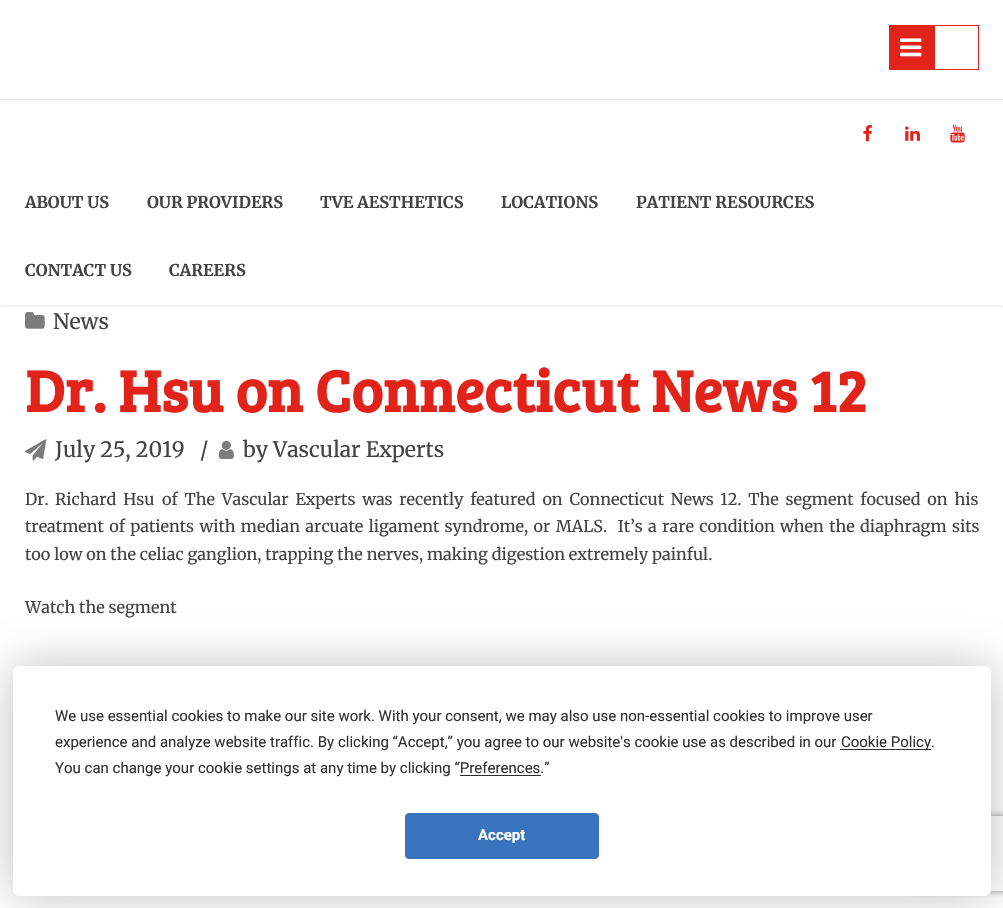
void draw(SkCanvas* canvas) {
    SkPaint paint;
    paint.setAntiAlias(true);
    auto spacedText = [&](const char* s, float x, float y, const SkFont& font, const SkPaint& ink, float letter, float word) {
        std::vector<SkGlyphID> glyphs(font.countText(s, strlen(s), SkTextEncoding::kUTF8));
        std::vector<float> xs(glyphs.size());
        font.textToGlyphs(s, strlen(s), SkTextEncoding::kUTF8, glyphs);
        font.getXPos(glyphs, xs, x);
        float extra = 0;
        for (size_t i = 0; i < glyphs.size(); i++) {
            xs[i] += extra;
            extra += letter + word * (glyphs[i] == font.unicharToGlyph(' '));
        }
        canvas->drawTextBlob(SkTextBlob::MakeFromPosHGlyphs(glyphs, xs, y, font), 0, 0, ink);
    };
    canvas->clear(0xFFFFFFFF);
    canvas->drawImageRect(SkImages::DeferredFromEncodedData(SkData::MakeFromFileName("img5.png")), SkRect::MakeXYWH(25, 312, 20, 17), SkSamplingOptions());
    canvas->save();
    canvas->clipRect(SkRect::MakeXYWH(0, 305, 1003, 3));
    paint.setColor(0x1A000000);
    paint.setMaskFilter(SkMaskFilter::MakeBlur(kNormal_SkBlurStyle, 2));
    canvas->drawRect(SkRect::MakeXYWH(0, 1, 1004, 305), paint);
    paint.setMaskFilter(nullptr);
    canvas->restore();
    paint.setColor(0xFFE2231A);
    canvas->drawRect(SkRect::MakeXYWH(889, 25, 45, 45), paint);
    canvas->drawImageRect(SkImages::DeferredFromEncodedData(SkData::MakeFromFileName("img1.png")), SkRect::MakeXYWH(900, 38, 22, 19), SkSamplingOptions());
    paint.setStyle(SkPaint::kStroke_Style);
    paint.setStrokeWidth(1);
    canvas->drawRect(SkRect::MakeXYWH(934.5f, 25.5f, 44, 44), paint);
    paint.setStyle(SkPaint::kFill_Style);
    paint.setColor(0xFFE6E6E6);
    canvas->drawRect(SkRect::MakeXYWH(0, 99, 1003, 1), paint);
    canvas->drawImageRect(SkImages::DeferredFromEncodedData(SkData::MakeFromFileName("img2.png")), SkRect::MakeXYWH(863, 125, 9, 17), SkSamplingOptions());
    canvas->drawImageRect(SkImages::DeferredFromEncodedData(SkData::MakeFromFileName("img3.png")), SkRect::MakeXYWH(905, 126, 15, 15), SkSamplingOptions());
    canvas->drawImageRect(SkImages::DeferredFromEncodedData(SkData::MakeFromFileName("img4.png")), SkRect::MakeXYWH(950, 125, 15, 18), SkSamplingOptions());
    SkFont font1(fontMgr->matchFamilyStyle("Merriweather", SkFontStyle::Bold()), 16.25f);
    font1.setSubpixel(true);
    paint.setColor(0xFF444444);
    canvas->drawString("ABOUT US", 25, 208, font1, paint);
    canvas->drawString("OUR PROVIDERS", 147, 208, font1, paint);
    canvas->drawString("TVE AESTHETICS", 320, 208, font1, paint);
    canvas->drawString("LOCATIONS", 501, 208, font1, paint);
    canvas->drawString("PATIENT RESOURCES", 636, 208, font1, paint);
    canvas->drawString("CONTACT US", 25, 276, font1, paint);
    canvas->drawString("CAREERS", 169, 276, font1, paint);
    SkFont font2(fontMgr->matchFamilyStyle("Merriweather", SkFontStyle::Normal()), 21.25f);
    font2.setSubpixel(true);
    canvas->drawString("News", 53, 329, font2, paint);
    SkFont font3(fontMgr->matchFamilyStyle("Bree Serif", SkFontStyle::Bold()), 60);
    font3.setSubpixel(true);
    paint.setColor(0xFFE2231A);
    canvas->drawString("Dr. Hsu on Connecticut News 12", 25, 412, font3, paint);
    canvas->drawImageRect(SkImages::DeferredFromEncodedData(SkData::MakeFromFileName("img6.png")), SkRect::MakeXYWH(25, 439, 22, 22), SkSamplingOptions());
    paint.setColor(0xFF444444);
    canvas->drawString("July 25, 2019", 55, 457, font2, paint);
    canvas->drawString("/", 200, 457, font2, paint);
    canvas->drawImageRect(SkImages::DeferredFromEncodedData(SkData::MakeFromFileName("img7.png")), SkRect::MakeXYWH(218, 440, 16, 19), SkSamplingOptions());
    canvas->drawString("by Vascular Experts", 243, 457, font2, paint);
    SkFont font4(fontMgr->matchFamilyStyle("Merriweather", SkFontStyle::Normal()), 16.25f);
    font4.setSubpixel(true);
    canvas->drawString("Dr.", 25, 505, font4, paint);
    spacedText("Richard Hsu", 55, 505, font4, paint, 0, 2.9f);
    spacedText("of The Vascular Experts was recently featured on Connecticut News 12. The segment focused on his", 162, 505, font4, paint, 0, 2.9f);
    spacedText("treatment of patients with median arcuate ligament syndrome, or MALS.  It’s a rare condition when the diaphragm sits", 25, 532, font4, paint, 0, 1.5f);
    canvas->drawString("too low on the celiac ganglion, trapping the nerves, making digestion extremely painful.", 25, 560, font4, paint);
    canvas->drawString("Watch the segment", 25, 613, font4, paint);
    paint.setColor(0x40000000);
    paint.setMaskFilter(SkMaskFilter::MakeBlur(kNormal_SkBlurStyle, 22));
    canvas->drawRoundRect(SkRect::MakeXYWH(13, 666, 978, 230), 6, 6, paint);
    paint.setMaskFilter(nullptr);
    canvas->save();
    canvas->clipPath(SkPathBuilder(SkPathFillType::kEvenOdd).moveTo(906, 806).lineTo(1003, 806).lineTo(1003, 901).lineTo(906, 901).close().moveTo(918.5f, 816).lineTo(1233.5f, 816).cubicTo(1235, 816, 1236, 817, 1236, 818.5f).lineTo(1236, 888.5f).cubicTo(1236, 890, 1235, 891, 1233.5f, 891).lineTo(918.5f, 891).cubicTo(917, 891, 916, 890, 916, 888.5f).lineTo(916, 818.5f).cubicTo(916, 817, 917, 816, 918.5f, 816).close().detach(), true);
    paint.setColor(0xFF808080);
    paint.setMaskFilter(SkMaskFilter::MakeBlur(kNormal_SkBlurStyle, 3));
    canvas->drawRoundRect(SkRect::MakeXYWH(916, 816, 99, 75), 2.5f, 2.5f, paint);
    paint.setMaskFilter(nullptr);
    canvas->restore();
    paint.setColor(0xFFFFFFFF);
    canvas->drawRoundRect(SkRect::MakeXYWH(13, 666, 978, 230), 6, 6, paint);
    SkFont font5(fontMgr->matchFamilyStyle("Roboto", SkFontStyle::Normal()), 15);
    font5.setSubpixel(true);
    paint.setColor(0xFF303030);
    canvas->drawString("We use essential cookies to make our site work. With your consent, we may also use non-essential cookies to improve user", 55, 721, font5, paint);
    canvas->drawString("experience and analyze website traffic. By clicking “Accept,” you agree to our website's cookie use as described in our", 55, 747, font5, paint);
    canvas->drawRect(SkRect::MakeXYWH(840, 749, 91, 1), paint);
    canvas->drawString("Cookie Policy.", 841, 747, font5, paint);
    canvas->drawString("You can change your cookie settings at any time by clicking “Preferences.”", 55, 773, font5, paint);
    canvas->drawRect(SkRect::MakeXYWH(460, 775, 81, 1), paint);
    paint.setColor(0xFF3973BE);
    canvas->drawRoundRect(SkRect::MakeXYWH(405.5f, 813.5f, 193, 45), 3.5f, 3.5f, paint);
    paint.setStyle(SkPaint::kStroke_Style);
    canvas->drawRoundRect(SkRect::MakeXYWH(405.5f, 813.5f, 193, 45), 3.5f, 3.5f, paint);
    SkFont font6(fontMgr->matchFamilyStyle("Roboto", SkFontStyle::Bold()), 15);
    font6.setSubpixel(true);
    paint.setStyle(SkPaint::kFill_Style);
    paint.setColor(0xFFFFFFFF);
    canvas->drawString("Accept", 478, 840, font6, paint);
}
